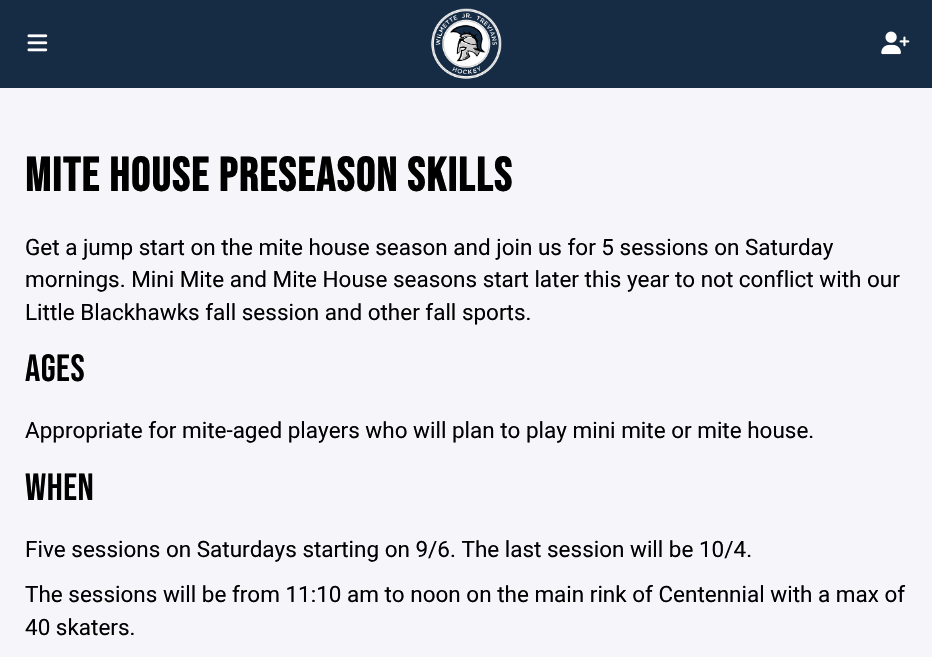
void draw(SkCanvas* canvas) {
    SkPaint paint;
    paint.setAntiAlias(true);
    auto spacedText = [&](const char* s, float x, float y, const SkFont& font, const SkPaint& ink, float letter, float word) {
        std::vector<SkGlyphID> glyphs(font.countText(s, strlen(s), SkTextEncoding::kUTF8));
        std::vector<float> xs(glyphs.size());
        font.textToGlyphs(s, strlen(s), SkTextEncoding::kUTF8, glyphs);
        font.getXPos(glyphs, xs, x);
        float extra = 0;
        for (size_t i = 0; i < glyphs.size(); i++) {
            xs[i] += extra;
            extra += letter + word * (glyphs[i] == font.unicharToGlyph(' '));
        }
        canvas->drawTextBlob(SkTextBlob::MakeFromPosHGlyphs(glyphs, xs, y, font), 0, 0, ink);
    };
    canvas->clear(0xFFF6F5FA);
    paint.setColor(0xFF162C44);
    canvas->drawRect(SkRect::MakeXYWH(0, 0, 932, 88), paint);
    canvas->drawImageRect(SkImages::DeferredFromEncodedData(SkData::MakeFromFileName("img1.png")), SkRect::MakeXYWH(27, 34, 21, 18), SkSamplingOptions());
    canvas->drawImageRect(SkImages::DeferredFromEncodedData(SkData::MakeFromFileName("img2.png")), SkRect::MakeXYWH(431, 8, 71, 71), SkSamplingOptions());
    canvas->drawImageRect(SkImages::DeferredFromEncodedData(SkData::MakeFromFileName("img3.png")), SkRect::MakeXYWH(881, 31, 29, 24), SkSamplingOptions());
    SkFont font1(fontMgr->matchFamilyStyle("Bebas Neue", SkFontStyle::Bold()), 47.5f);
    font1.setSubpixel(true);
    paint.setColor(0xFF000000);
    spacedText("MITE HOUSE PRESEASON SKILLS", 25, 191, font1, paint, 1.5f, 0);
    SkFont font2(fontMgr->matchFamilyStyle("Roboto", SkFontStyle::Normal()), 22.5f);
    font2.setSubpixel(true);
    canvas->drawString("Get a jump start on the mite house season and join us for 5 sessions on Saturday", 25, 255, font2, paint);
    canvas->drawString("mornings. Mini Mite and Mite House seasons start later this year to not conflict with our", 25, 287, font2, paint);
    canvas->drawString("Little Blackhawks fall session and other fall sports.", 25, 320, font2, paint);
    SkFont font3(fontMgr->matchFamilyStyle("Bebas Neue", SkFontStyle::Normal()), 38);
    font3.setSubpixel(true);
    spacedText("AGES", 25, 381, font3, paint, 0.5f, 0);
    canvas->drawString("Appropriate for mite-aged players who will plan to play mini mite or mite house.", 25, 438, font2, paint);
    spacedText("WHEN", 25, 500, font3, paint, 0.5f, 0);
    canvas->drawString("Five sessions on Saturdays starting on 9/6. The last session will be 10/4.", 25, 557, font2, paint);
    canvas->drawString("The sessions will be from 11:10 am to noon on the main rink of Centennial with a max of", 25, 602, font2, paint);
    canvas->drawString("40 skaters.", 25, 635, font2, paint);
}
